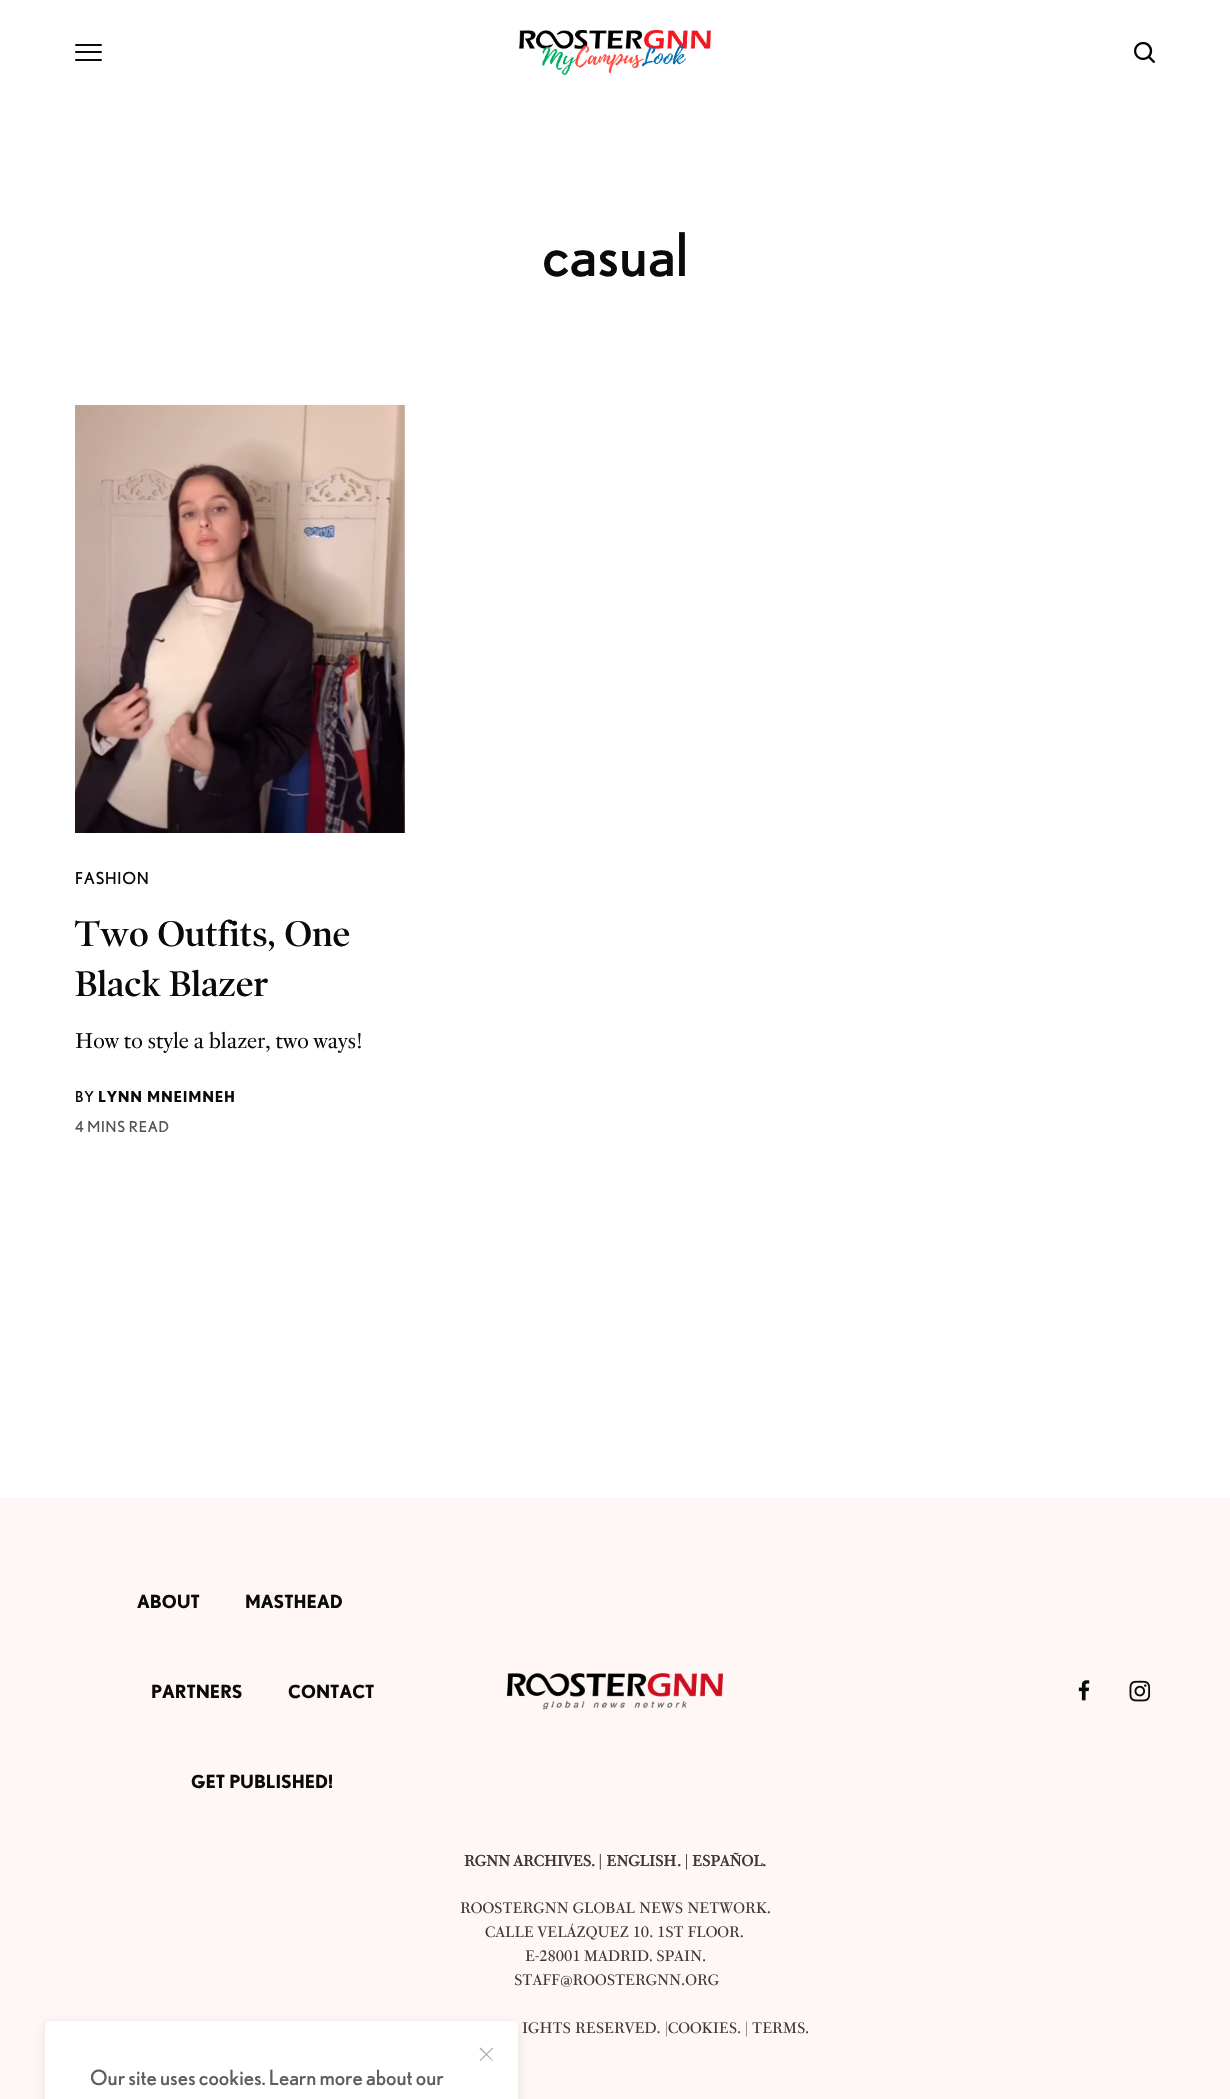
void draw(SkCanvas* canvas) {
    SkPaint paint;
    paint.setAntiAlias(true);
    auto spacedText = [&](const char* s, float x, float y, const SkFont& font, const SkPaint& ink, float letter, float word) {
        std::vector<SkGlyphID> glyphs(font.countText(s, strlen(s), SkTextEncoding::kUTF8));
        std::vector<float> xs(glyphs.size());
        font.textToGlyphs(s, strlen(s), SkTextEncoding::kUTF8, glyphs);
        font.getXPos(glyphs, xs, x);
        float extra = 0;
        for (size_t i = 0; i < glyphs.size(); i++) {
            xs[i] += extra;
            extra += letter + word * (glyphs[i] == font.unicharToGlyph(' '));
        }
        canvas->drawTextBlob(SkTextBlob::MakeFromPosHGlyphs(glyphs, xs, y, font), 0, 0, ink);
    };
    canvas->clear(0xFFFFFFFF);
    paint.setColor(0xFF0A0A0A);
    canvas->drawRoundRect(SkRect::MakeXYWH(75, 44, 27, 2), 1, 1, paint);
    canvas->drawRoundRect(SkRect::MakeXYWH(75, 51, 27, 2), 1, 1, paint);
    canvas->drawRoundRect(SkRect::MakeXYWH(75, 59, 27, 2), 1, 1, paint);
    canvas->drawImageRect(SkImages::DeferredFromEncodedData(SkData::MakeFromFileName("img1.png")), SkRect::MakeXYWH(519, 30, 192, 45), SkSamplingOptions());
    canvas->drawImageRect(SkImages::DeferredFromEncodedData(SkData::MakeFromFileName("img2.png")), SkRect::MakeXYWH(1134, 42, 21, 21), SkSamplingOptions());
    SkFont font1(fontMgr->matchFamilyStyle("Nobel", SkFontStyle::Normal()), 60);
    font1.setSubpixel(true);
    canvas->drawString("casual", 542, 276, font1, paint);
    canvas->drawImageRect(SkImages::DeferredFromEncodedData(SkData::MakeFromFileName("img3.png")), SkRect::MakeXYWH(75, 405, 330, 428), SkSamplingOptions());
    SkFont font2(fontMgr->matchFamilyStyle("Nobel", SkFontStyle::Normal()), 16.5f);
    font2.setSubpixel(true);
    spacedText("FASHION", 75, 884, font2, paint, 0.75f, 0);
    SkFont font3(fontMgr->matchFamilyStyle("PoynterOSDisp", SkFontStyle(600, SkFontStyle::kNormal_Width, SkFontStyle::kUpright_Slant)), 36);
    font3.setSubpixel(true);
    canvas->drawString("Two Outfits, One", 75, 946, font3, paint);
    canvas->drawString("Black Blazer", 75, 996, font3, paint);
    SkFont font4(fontMgr->matchFamilyStyle("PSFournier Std", SkFontStyle::Normal()), 21);
    font4.setSubpixel(true);
    spacedText("How to style a blazer, two ways!", 75, 1048, font4, paint, 0, -1);
    SkFont font5(fontMgr->matchFamilyStyle("Nobel", SkFontStyle::Normal()), 15);
    font5.setSubpixel(true);
    spacedText("BY", 75, 1102, font5, paint, 0.75f, 0);
    SkFont font6(fontMgr->matchFamilyStyle("Nobel", SkFontStyle::Bold()), 15);
    font6.setSubpixel(true);
    spacedText("LYNN MNEIMNEH", 98, 1102, font6, paint, 0.75f, 0);
    paint.setColor(0xFF545454);
    spacedText("4 MINS READ", 75, 1132, font5, paint, 0.75f, 0);
    paint.setColor(0xFFFFF6F6);
    canvas->drawRect(SkRect::MakeXYWH(0, 1497, 1230, 602), paint);
    SkFont font7(fontMgr->matchFamilyStyle("Nobel", SkFontStyle::Bold()), 18);
    font7.setSubpixel(true);
    paint.setColor(0xFF0A0A0A);
    canvas->drawString("ABOUT", 137, 1608, font7, paint);
    canvas->drawString("MASTHEAD", 245, 1608, font7, paint);
    canvas->drawString("PARTNERS", 151, 1698, font7, paint);
    canvas->drawString("CONTACT", 288, 1698, font7, paint);
    canvas->drawString("GET PUBLISHED!", 191, 1788, font7, paint);
    canvas->drawImageRect(SkImages::DeferredFromEncodedData(SkData::MakeFromFileName("img4.png")), SkRect::MakeXYWH(507, 1673, 216, 37), SkSamplingOptions());
    canvas->drawImageRect(SkImages::DeferredFromEncodedData(SkData::MakeFromFileName("img5.png")), SkRect::MakeXYWH(1078, 1680, 12, 21), SkSamplingOptions());
    canvas->drawImageRect(SkImages::DeferredFromEncodedData(SkData::MakeFromFileName("img6.png")), SkRect::MakeXYWH(1129, 1680, 22, 22), SkSamplingOptions());
    SkFont font8(fontMgr->matchFamilyStyle("PSFournier Std", SkFontStyle::Bold()), 15);
    font8.setSubpixel(true);
    paint.setColor(0xFF3B3939);
    spacedText("RGNN ARCHIVES.", 464, 1866, font8, paint, 0, -1);
    canvas->drawString("| ENGLISH", 598, 1866, font8, paint);
    spacedText(". |", 677, 1866, font8, paint, 0, -1);
    canvas->drawString("ESPAÑOL", 692, 1866, font8, paint);
    canvas->drawString(".", 762, 1866, font8, paint);
    SkFont font9(fontMgr->matchFamilyStyle("PSFournier Std", SkFontStyle::Normal()), 15);
    font9.setSubpixel(true);
    canvas->drawString("ROOSTERGNN GLOBAL NEWS NETWORK.", 460, 1913, font9, paint);
    spacedText("CALLE VELÁZQUEZ 10. 1ST FLOOR.", 485, 1937, font9, paint, 0, -0.5f);
    spacedText("E-28001 MADRID. SPAIN.", 525, 1961, font9, paint, 0, -1);
    canvas->drawString("STAFF@ROOSTERGNN.ORG", 514, 1985, font9, paint);
    canvas->drawString("IGHTS RESERVED. |", 522, 2033, font9, paint);
    canvas->drawString("COOKIES", 668, 2033, font9, paint);
    spacedText(". |", 737, 2033, font9, paint, 0, -1);
    canvas->drawString("TERMS", 752, 2033, font9, paint);
    canvas->drawString(".", 805, 2033, font9, paint);
    paint.setColor(0x1A000000);
    paint.setMaskFilter(SkMaskFilter::MakeBlur(kNormal_SkBlurStyle, 5));
    canvas->drawRoundRect(SkRect::MakeXYWH(45, 2024, 473, 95), 5, 5, paint);
    paint.setMaskFilter(nullptr);
    paint.setColor(0xFFFFFFFF);
    canvas->drawRoundRect(SkRect::MakeXYWH(45, 2021, 473, 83), 5, 5, paint);
    paint.setColor(0xFFA3A3A3);
    canvas->drawPath(SkPathBuilder().moveTo(480.5f, 2047.5f).lineTo(493, 2060.5f).lineTo(492.5f, 2061).lineTo(479.5f, 2048.5f).close().detach(), paint);
    canvas->drawPath(SkPathBuilder().moveTo(479.5f, 2060.5f).lineTo(492.5f, 2047.5f).lineTo(493, 2048.5f).lineTo(480.5f, 2061).close().detach(), paint);
    SkFont font10(fontMgr->matchFamilyStyle("Nobel", SkFontStyle::Normal()), 21);
    font10.setSubpixel(true);
    paint.setColor(0xFF5E5E5E);
    canvas->drawString("Our site uses cookies. Learn more about our", 90, 2085, font10, paint);
}
